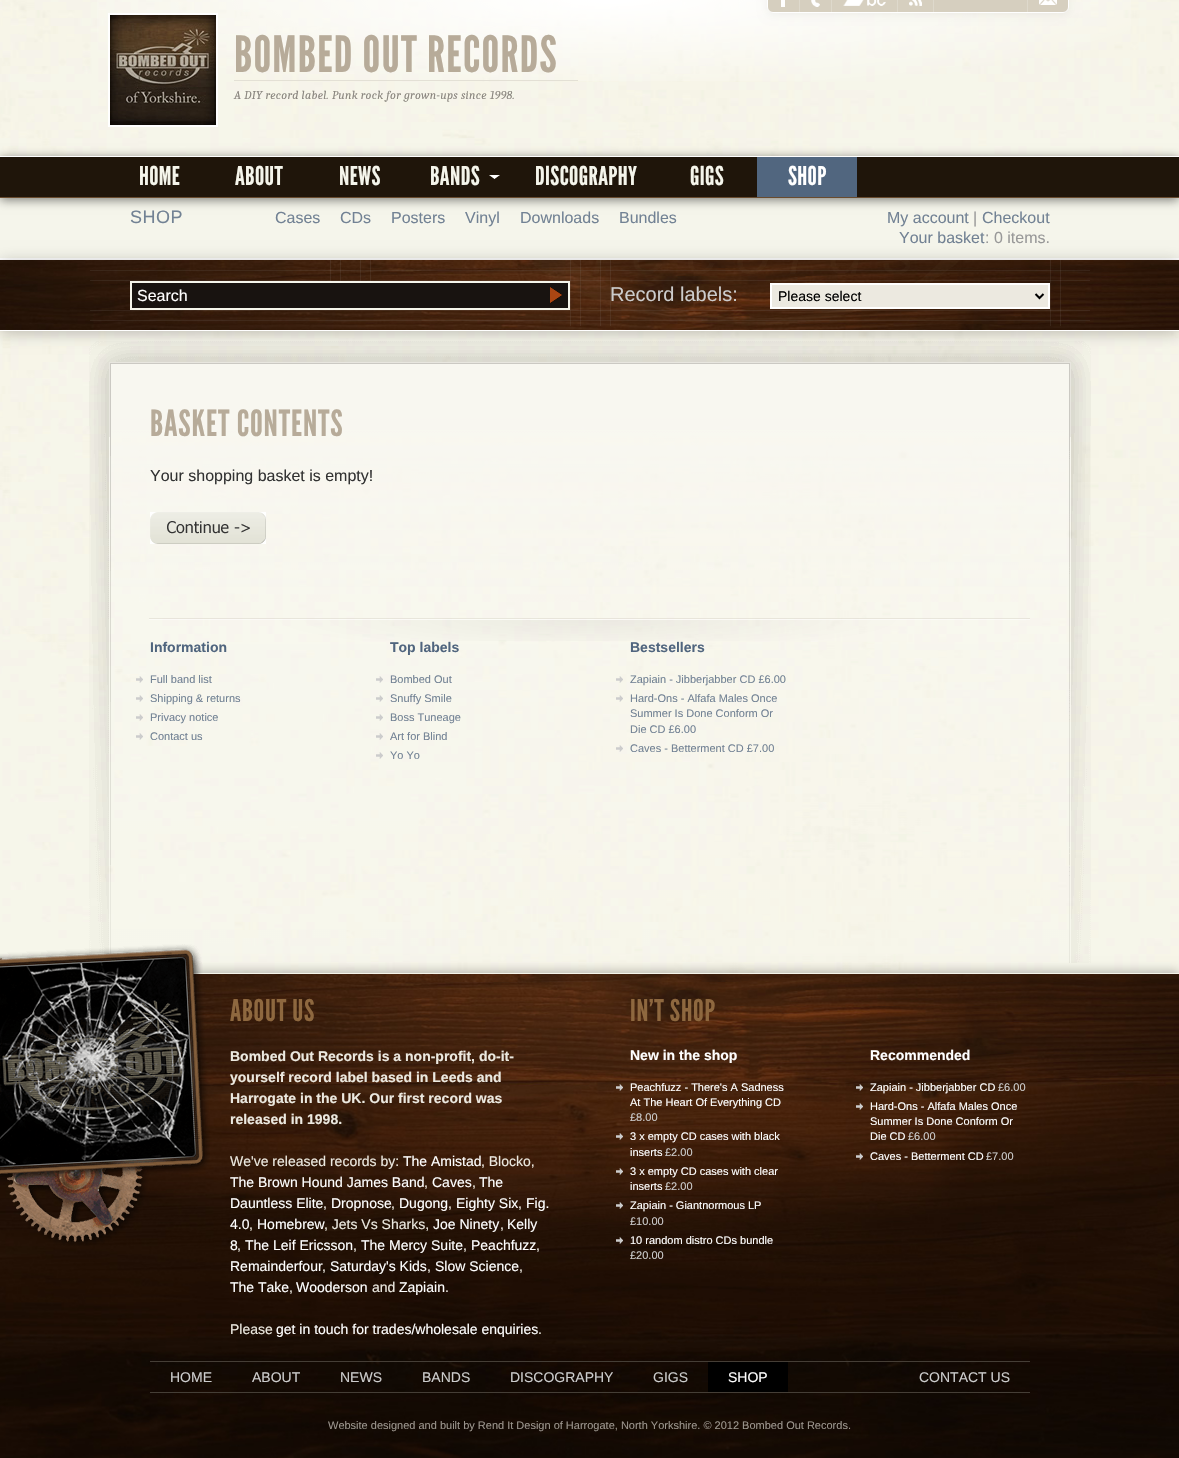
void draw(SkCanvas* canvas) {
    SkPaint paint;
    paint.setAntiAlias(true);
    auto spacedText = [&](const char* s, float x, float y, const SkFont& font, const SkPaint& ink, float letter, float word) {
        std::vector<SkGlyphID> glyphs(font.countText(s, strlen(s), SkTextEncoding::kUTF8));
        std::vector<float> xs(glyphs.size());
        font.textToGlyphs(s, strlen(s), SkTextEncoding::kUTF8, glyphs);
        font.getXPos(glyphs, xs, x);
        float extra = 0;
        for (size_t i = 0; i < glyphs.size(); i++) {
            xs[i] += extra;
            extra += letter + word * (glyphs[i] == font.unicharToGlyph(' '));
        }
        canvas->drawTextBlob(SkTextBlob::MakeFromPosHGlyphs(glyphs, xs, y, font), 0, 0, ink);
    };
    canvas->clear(0xFFFFFFFF);
    canvas->drawImageRect(SkImages::DeferredFromEncodedData(SkData::MakeFromFileName("img1.png")), SkRect::MakeXYWH(0, 0, 1179, 973), SkSamplingOptions());
    canvas->drawImageRect(SkImages::DeferredFromEncodedData(SkData::MakeFromFileName("img2.png")), SkRect::MakeXYWH(97, 0, 1034, 81), SkSamplingOptions());
    paint.setStyle(SkPaint::kStroke_Style);
    paint.setStrokeWidth(2);
    paint.setColor(0xFFFFFFFF);
    canvas->drawRect(SkRect::MakeXYWH(109, 14, 108, 112), paint);
    canvas->drawImageRect(SkImages::DeferredFromEncodedData(SkData::MakeFromFileName("img3.png")), SkRect::MakeXYWH(110, 15, 106, 110), SkSamplingOptions());
    paint.setStyle(SkPaint::kFill_Style);
    paint.setColor(0xFFE3E0D5);
    canvas->drawRect(SkRect::MakeXYWH(234, 80, 344, 1), paint);
    SkFont font1(fontMgr->matchFamilyStyle("League Gothic", SkFontStyle::Normal()), 50);
    font1.setSubpixel(true);
    paint.setColor(0xFFB7AB99);
    spacedText("BOMBED OUT RECORDS", 234, 72, font1, paint, 1.25f, 0);
    paint.setColor(0x0D000000);
    paint.setMaskFilter(SkMaskFilter::MakeBlur(kNormal_SkBlurStyle, 5));
    canvas->drawRoundRect(SkRect::MakeXYWH(767, -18, 302, 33), 6, 6, paint);
    paint.setMaskFilter(nullptr);
    paint.setColor(0xFFD6CFBF);
    canvas->drawRoundRect(SkRect::MakeXYWH(767.5f, -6.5f, 301, 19), 5.5f, 5.5f, paint);
    paint.setStyle(SkPaint::kStroke_Style);
    paint.setStrokeWidth(1);
    paint.setColor(0xFFFFFFFF);
    canvas->drawRoundRect(SkRect::MakeXYWH(767.5f, -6.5f, 301, 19), 5.5f, 5.5f, paint);
    paint.setStyle(SkPaint::kFill_Style);
    paint.setColor(0xFFDED9CC);
    canvas->drawRect(SkRect::MakeXYWH(799, 0, 1, 12), paint);
    paint.setColor(0xFFFFFFFF);
    canvas->drawRect(SkRect::MakeXYWH(781, 0, 4, 7), paint);
    paint.setColor(0xFFDED9CC);
    canvas->drawRect(SkRect::MakeXYWH(831, 0, 1, 12), paint);
    canvas->drawImageRect(SkImages::DeferredFromEncodedData(SkData::MakeFromFileName("img4.png")), SkRect::MakeXYWH(811, 0, 9, 7), SkSamplingOptions());
    canvas->drawRect(SkRect::MakeXYWH(897, 0, 1, 12), paint);
    canvas->drawImageRect(SkImages::DeferredFromEncodedData(SkData::MakeFromFileName("img5.png")), SkRect::MakeXYWH(843, 0, 43, 6), SkSamplingOptions());
    canvas->drawRect(SkRect::MakeXYWH(933, 0, 1, 12), paint);
    canvas->drawImageRect(SkImages::DeferredFromEncodedData(SkData::MakeFromFileName("img6.png")), SkRect::MakeXYWH(909, 0, 13, 6), SkSamplingOptions());
    canvas->drawRect(SkRect::MakeXYWH(1027, 0, 1, 12), paint);
    canvas->drawImageRect(SkImages::DeferredFromEncodedData(SkData::MakeFromFileName("img7.png")), SkRect::MakeXYWH(1039, 0, 18, 5), SkSamplingOptions());
    SkFont font2(fontMgr->matchFamilyStyle("Caladea", SkFontStyle::Italic()), 12);
    font2.setSubpixel(true);
    paint.setColor(0xFF8A867F);
    spacedText("A DIY record label. Punk rock for grown-ups since 1998.", 234, 99, font2, paint, 0.3f, 0);
    paint.setColor(0xFFF5F5EB);
    canvas->drawRect(SkRect::MakeXYWH(0, 198, 1178, 60), paint);
    paint.setColor(0x80000000);
    paint.setMaskFilter(SkMaskFilter::MakeBlur(kNormal_SkBlurStyle, 5));
    canvas->drawRect(SkRect::MakeXYWH(0, 158, 1179, 42), paint);
    paint.setMaskFilter(nullptr);
    paint.setColor(0xFF1F150A);
    canvas->drawRect(SkRect::MakeXYWH(0, 157, 1179, 40), paint);
    paint.setColor(0xFFFFFFFF);
    canvas->drawRect(SkRect::MakeXYWH(0, 156, 1179, 1), paint);
    paint.setColor(0xFF694B2E);
    canvas->drawRect(SkRect::MakeXYWH(0, 197, 1179, 1), paint);
    SkFont font3(fontMgr->matchFamilyStyle("League Gothic", SkFontStyle::Normal()), 26);
    font3.setSubpixel(true);
    paint.setColor(0xFFF5F5EB);
    spacedText("HOME", 139, 185, font3, paint, 0.4f, 0);
    spacedText("ABOUT", 235, 185, font3, paint, 0.4f, 0);
    spacedText("NEWS", 339, 185, font3, paint, 0.4f, 0);
    spacedText("BANDS", 430, 185, font3, paint, 0.4f, 0);
    canvas->drawImageRect(SkImages::DeferredFromEncodedData(SkData::MakeFromFileName("img8.png")), SkRect::MakeXYWH(489, 175, 11, 4), SkSamplingOptions());
    spacedText("DISCOGRAPHY", 535, 185, font3, paint, 0.4f, 0);
    spacedText("GIGS", 690, 185, font3, paint, 0.4f, 0);
    paint.setColor(0xFF51667F);
    canvas->drawRect(SkRect::MakeXYWH(757, 157, 100, 40), paint);
    paint.setColor(0xFFFFFFFF);
    spacedText("SHOP", 788, 185, font3, paint, 0.4f, 0);
    canvas->drawRect(SkRect::MakeXYWH(0, 258, 1179, 2), paint);
    SkFont font4(fontMgr->matchFamilyStyle("Liberation Sans", SkFontStyle::Normal()), 18);
    font4.setSubpixel(true);
    paint.setColor(0xFF728294);
    spacedText("SHOP", 130, 223, font4, paint, 0.5f, 0);
    SkFont font5(fontMgr->matchFamilyStyle("Liberation Sans", SkFontStyle::Normal()), 16);
    font5.setSubpixel(true);
    canvas->drawString("Cases", 275, 223, font5, paint);
    canvas->drawString("CDs", 340, 223, font5, paint);
    canvas->drawString("Posters", 391, 223, font5, paint);
    canvas->drawString("Vinyl", 465, 223, font5, paint);
    canvas->drawString("Downloads", 520, 223, font5, paint);
    canvas->drawString("Bundles", 619, 223, font5, paint);
    canvas->drawString("My account", 887, 223, font5, paint);
    paint.setColor(0xFF999999);
    canvas->drawString("|", 973, 223, font5, paint);
    paint.setColor(0xFF728294);
    canvas->drawString("Checkout", 982, 223, font5, paint);
    canvas->drawString("Your basket", 899, 243, font5, paint);
    paint.setColor(0xFF999999);
    canvas->drawString(": 0 items.", 985, 243, font5, paint);
    paint.setColor(0x40000000);
    paint.setMaskFilter(SkMaskFilter::MakeBlur(kNormal_SkBlurStyle, 7.5f));
    canvas->drawRect(SkRect::MakeXYWH(0, 262, 1179, 71), paint);
    paint.setMaskFilter(nullptr);
    canvas->drawImageRect(SkImages::DeferredFromEncodedData(SkData::MakeFromFileName("img9.png")), SkRect::MakeXYWH(0, 260, 1179, 70), SkSamplingOptions());
    paint.setColor(0xFFFFFFFF);
    canvas->drawRect(SkRect::MakeXYWH(0, 330, 1179, 1), paint);
    canvas->drawImageRect(SkImages::DeferredFromEncodedData(SkData::MakeFromFileName("img10.png")), SkRect::MakeXYWH(90, 260, 1000, 66), SkSamplingOptions());
    paint.setColor(0xFF181310);
    canvas->drawRect(SkRect::MakeXYWH(131, 282, 438, 27), paint);
    paint.setStyle(SkPaint::kStroke_Style);
    paint.setStrokeWidth(2);
    paint.setColor(0xFFF5F5EB);
    canvas->drawRect(SkRect::MakeXYWH(131, 282, 438, 27), paint);
    paint.setStyle(SkPaint::kFill_Style);
    paint.setColor(0xFFFFFFFF);
    canvas->drawString("Search", 137, 301, font5, paint);
    canvas->drawImageRect(SkImages::DeferredFromEncodedData(SkData::MakeFromFileName("img11.png")), SkRect::MakeXYWH(550, 287, 12, 16), SkSamplingOptions());
    SkFont font6(fontMgr->matchFamilyStyle("Liberation Sans", SkFontStyle::Normal()), 20);
    font6.setSubpixel(true);
    paint.setColor(0xFFCCCCCC);
    canvas->drawString("Record labels:", 610, 301, font6, paint);
    paint.setColor(0xFFECE9E0);
    canvas->drawRect(SkRect::MakeXYWH(771, 284, 278, 24), paint);
    paint.setStyle(SkPaint::kStroke_Style);
    paint.setColor(0xFFFFFFFF);
    canvas->drawRect(SkRect::MakeXYWH(771, 284, 278, 24), paint);
    paint.setColor(0xFF000000);
    canvas->drawPath(SkPathBuilder().moveTo(1035.5f, 294).lineTo(1039.5f, 298).lineTo(1043.5f, 294).detach(), paint);
    SkFont font7(fontMgr->matchFamilyStyle("Liberation Sans", SkFontStyle::Normal()), 14);
    font7.setSubpixel(true);
    paint.setStyle(SkPaint::kFill_Style);
    canvas->drawString("Please select", 778, 301, font7, paint);
    paint.setColor(0x40000000);
    paint.setMaskFilter(SkMaskFilter::MakeBlur(kNormal_SkBlurStyle, 5));
    canvas->drawRect(SkRect::MakeXYWH(0, 971, 1179, 485), paint);
    paint.setMaskFilter(nullptr);
    canvas->drawImageRect(SkImages::DeferredFromEncodedData(SkData::MakeFromFileName("img12.png")), SkRect::MakeXYWH(89, 341, 1002, 622), SkSamplingOptions());
    SkFont font8(fontMgr->matchFamilyStyle("League Gothic", SkFontStyle::Normal()), 36);
    font8.setSubpixel(true);
    paint.setColor(0xFFB7AB99);
    spacedText("BASKET CONTENTS", 150, 436, font8, paint, 0.9f, 0);
    paint.setColor(0xFF333333);
    canvas->drawString("Your shopping basket is empty!", 150, 481, font5, paint);
    canvas->drawImageRect(SkImages::DeferredFromEncodedData(SkData::MakeFromFileName("img13.png")), SkRect::MakeXYWH(150, 512, 116, 32), SkSamplingOptions());
    canvas->drawImageRect(SkImages::DeferredFromEncodedData(SkData::MakeFromFileName("img14.png")), SkRect::MakeXYWH(149, 618, 881, 23), SkSamplingOptions());
    SkFont font9(fontMgr->matchFamilyStyle("Liberation Sans", SkFontStyle::Bold()), 14);
    font9.setSubpixel(true);
    paint.setColor(0xFF50657E);
    canvas->drawString("Information", 150, 652, font9, paint);
    canvas->drawImageRect(SkImages::DeferredFromEncodedData(SkData::MakeFromFileName("img15.png")), SkRect::MakeXYWH(136, 676, 7, 7), SkSamplingOptions());
    SkFont font10(fontMgr->matchFamilyStyle("Liberation Sans", SkFontStyle::Normal()), 11);
    font10.setSubpixel(true);
    paint.setColor(0xFF728294);
    canvas->drawString("Full band list", 150, 683, font10, paint);
    canvas->drawImageRect(SkImages::DeferredFromEncodedData(SkData::MakeFromFileName("img16.png")), SkRect::MakeXYWH(136, 695, 7, 7), SkSamplingOptions());
    canvas->drawString("Shipping & returns", 150, 702, font10, paint);
    canvas->drawImageRect(SkImages::DeferredFromEncodedData(SkData::MakeFromFileName("img17.png")), SkRect::MakeXYWH(136, 714, 7, 7), SkSamplingOptions());
    canvas->drawString("Privacy notice", 150, 721, font10, paint);
    canvas->drawImageRect(SkImages::DeferredFromEncodedData(SkData::MakeFromFileName("img18.png")), SkRect::MakeXYWH(136, 733, 7, 7), SkSamplingOptions());
    canvas->drawString("Contact us", 150, 740, font10, paint);
    paint.setColor(0xFF50657E);
    canvas->drawString("Top labels", 390, 652, font9, paint);
    canvas->drawImageRect(SkImages::DeferredFromEncodedData(SkData::MakeFromFileName("img19.png")), SkRect::MakeXYWH(376, 676, 7, 7), SkSamplingOptions());
    paint.setColor(0xFF728294);
    canvas->drawString("Bombed Out", 390, 683, font10, paint);
    canvas->drawImageRect(SkImages::DeferredFromEncodedData(SkData::MakeFromFileName("img20.png")), SkRect::MakeXYWH(376, 695, 7, 7), SkSamplingOptions());
    canvas->drawString("Snuffy Smile", 390, 702, font10, paint);
    canvas->drawImageRect(SkImages::DeferredFromEncodedData(SkData::MakeFromFileName("img16.png")), SkRect::MakeXYWH(376, 714, 7, 7), SkSamplingOptions());
    canvas->drawString("Boss Tuneage", 390, 721, font10, paint);
    canvas->drawImageRect(SkImages::DeferredFromEncodedData(SkData::MakeFromFileName("img21.png")), SkRect::MakeXYWH(376, 733, 7, 7), SkSamplingOptions());
    canvas->drawString("Art for Blind", 390, 740, font10, paint);
    canvas->drawImageRect(SkImages::DeferredFromEncodedData(SkData::MakeFromFileName("img22.png")), SkRect::MakeXYWH(376, 752, 7, 7), SkSamplingOptions());
    canvas->drawString("Yo Yo", 390, 759, font10, paint);
    paint.setColor(0xFF50657E);
    canvas->drawString("Bestsellers", 630, 652, font9, paint);
    canvas->drawImageRect(SkImages::DeferredFromEncodedData(SkData::MakeFromFileName("img23.png")), SkRect::MakeXYWH(616, 676, 7, 7), SkSamplingOptions());
    paint.setColor(0xFF728294);
    canvas->drawString("Zapiain - Jibberjabber CD £6.00", 630, 683, font10, paint);
    canvas->drawImageRect(SkImages::DeferredFromEncodedData(SkData::MakeFromFileName("img24.png")), SkRect::MakeXYWH(616, 695, 7, 7), SkSamplingOptions());
    canvas->drawString("Hard-Ons - Alfafa Males Once", 630, 702, font10, paint);
    canvas->drawString("Summer Is Done Conform Or", 630, 717, font10, paint);
    canvas->drawString("Die CD £6.00", 630, 733, font10, paint);
    canvas->drawImageRect(SkImages::DeferredFromEncodedData(SkData::MakeFromFileName("img25.png")), SkRect::MakeXYWH(616, 745, 7, 7), SkSamplingOptions());
    canvas->drawString("Caves - Betterment CD £7.00", 630, 752, font10, paint);
    canvas->drawImageRect(SkImages::DeferredFromEncodedData(SkData::MakeFromFileName("img26.png")), SkRect::MakeXYWH(0, 974, 1179, 484), SkSamplingOptions());
    paint.setColor(0xFFF5F5EB);
    canvas->drawRect(SkRect::MakeXYWH(193, 973, 986, 1), paint);
    canvas->drawImageRect(SkImages::DeferredFromEncodedData(SkData::MakeFromFileName("img27.png")), SkRect::MakeXYWH(0, 944, 210, 302), SkSamplingOptions());
    SkFont font11(fontMgr->matchFamilyStyle("League Gothic", SkFontStyle::Normal()), 30);
    font11.setSubpixel(true);
    paint.setColor(0xFF8E683F);
    spacedText("ABOUT US", 230, 1021, font11, paint, 0.75f, 0);
    paint.setColor(0xFFECE9E0);
    canvas->drawString("Bombed Out Records is a non-profit, do-it-", 230, 1061, font9, paint);
    canvas->drawString("yourself record label based in Leeds and", 230, 1082, font9, paint);
    canvas->drawString("Harrogate in the UK. Our first record was", 230, 1103, font9, paint);
    canvas->drawString("released in 1998.", 230, 1124, font9, paint);
    canvas->drawString("We've released records by:", 230, 1166, font7, paint);
    paint.setColor(0xFFFFFFFF);
    canvas->drawString("The Amistad", 403, 1166, font7, paint);
    paint.setColor(0xFFECE9E0);
    canvas->drawString(", Blocko,", 481, 1166, font7, paint);
    paint.setColor(0xFFFFFFFF);
    canvas->drawString("The Brown Hound James Band", 230, 1187, font7, paint);
    paint.setColor(0xFFECE9E0);
    canvas->drawString(",", 424, 1187, font7, paint);
    paint.setColor(0xFFFFFFFF);
    canvas->drawString("Caves", 432, 1187, font7, paint);
    paint.setColor(0xFFECE9E0);
    canvas->drawString(",", 472, 1187, font7, paint);
    paint.setColor(0xFFFFFFFF);
    canvas->drawString("The", 479, 1187, font7, paint);
    canvas->drawString("Dauntless Elite", 230, 1208, font7, paint);
    paint.setColor(0xFFECE9E0);
    canvas->drawString(",", 323, 1208, font7, paint);
    paint.setColor(0xFFFFFFFF);
    canvas->drawString("Dropnose", 331, 1208, font7, paint);
    paint.setColor(0xFFECE9E0);
    canvas->drawString(",", 391, 1208, font7, paint);
    paint.setColor(0xFFFFFFFF);
    canvas->drawString("Dugong", 399, 1208, font7, paint);
    paint.setColor(0xFFECE9E0);
    canvas->drawString(",", 448, 1208, font7, paint);
    paint.setColor(0xFFFFFFFF);
    canvas->drawString("Eighty Six", 456, 1208, font7, paint);
    paint.setColor(0xFFECE9E0);
    canvas->drawString(",", 518, 1208, font7, paint);
    paint.setColor(0xFFFFFFFF);
    canvas->drawString("Fig.", 526, 1208, font7, paint);
    canvas->drawString("4.0", 230, 1229, font7, paint);
    paint.setColor(0xFFECE9E0);
    canvas->drawString(",", 249, 1229, font7, paint);
    paint.setColor(0xFFFFFFFF);
    canvas->drawString("Homebrew", 257, 1229, font7, paint);
    paint.setColor(0xFFECE9E0);
    canvas->drawString(", Jets Vs Sharks,", 324, 1229, font7, paint);
    paint.setColor(0xFFFFFFFF);
    canvas->drawString("Joe Ninety", 433, 1229, font7, paint);
    paint.setColor(0xFFECE9E0);
    canvas->drawString(",", 500, 1229, font7, paint);
    paint.setColor(0xFFFFFFFF);
    canvas->drawString("Kelly", 507, 1229, font7, paint);
    canvas->drawString("8", 230, 1250, font7, paint);
    paint.setColor(0xFFECE9E0);
    canvas->drawString(",", 237, 1250, font7, paint);
    paint.setColor(0xFFFFFFFF);
    canvas->drawString("The Leif Ericsson", 245, 1250, font7, paint);
    paint.setColor(0xFFECE9E0);
    canvas->drawString(",", 353, 1250, font7, paint);
    paint.setColor(0xFFFFFFFF);
    canvas->drawString("The Mercy Suite", 361, 1250, font7, paint);
    paint.setColor(0xFFECE9E0);
    canvas->drawString(",", 463, 1250, font7, paint);
    paint.setColor(0xFFFFFFFF);
    canvas->drawString("Peachfuzz", 471, 1250, font7, paint);
    paint.setColor(0xFFECE9E0);
    canvas->drawString(",", 536, 1250, font7, paint);
    paint.setColor(0xFFFFFFFF);
    canvas->drawString("Remainderfour", 230, 1271, font7, paint);
    paint.setColor(0xFFECE9E0);
    canvas->drawString(",", 322, 1271, font7, paint);
    paint.setColor(0xFFFFFFFF);
    canvas->drawString("Saturday's Kids", 330, 1271, font7, paint);
    paint.setColor(0xFFECE9E0);
    canvas->drawString(",", 427, 1271, font7, paint);
    paint.setColor(0xFFFFFFFF);
    canvas->drawString("Slow Science", 435, 1271, font7, paint);
    paint.setColor(0xFFECE9E0);
    canvas->drawString(",", 519, 1271, font7, paint);
    paint.setColor(0xFFFFFFFF);
    canvas->drawString("The Take", 230, 1292, font7, paint);
    paint.setColor(0xFFECE9E0);
    canvas->drawString(",", 289, 1292, font7, paint);
    paint.setColor(0xFFFFFFFF);
    canvas->drawString("Wooderson", 296, 1292, font7, paint);
    paint.setColor(0xFFECE9E0);
    canvas->drawString("and", 372, 1292, font7, paint);
    paint.setColor(0xFFFFFFFF);
    canvas->drawString("Zapiain", 399, 1292, font7, paint);
    paint.setColor(0xFFECE9E0);
    canvas->drawString(".", 445, 1292, font7, paint);
    canvas->drawString("Please", 230, 1334, font7, paint);
    paint.setColor(0xFFFFFFFF);
    canvas->drawString("get in touch for trades/wholesale enquiries", 276, 1334, font7, paint);
    paint.setColor(0xFFECE9E0);
    canvas->drawString(".", 538, 1334, font7, paint);
    paint.setColor(0xFF8E683F);
    spacedText("IN'T SHOP", 630, 1021, font11, paint, 0.75f, 0);
    paint.setColor(0xFFFFFFFF);
    canvas->drawString("New in the shop", 630, 1060, font9, paint);
    canvas->drawImageRect(SkImages::DeferredFromEncodedData(SkData::MakeFromFileName("img28.png")), SkRect::MakeXYWH(616, 1084, 7, 7), SkSamplingOptions());
    canvas->drawString("Peachfuzz - There's A Sadness", 630, 1091, font10, paint);
    canvas->drawString("At The Heart Of Everything CD", 630, 1106, font10, paint);
    paint.setColor(0xFFCCCCCC);
    canvas->drawString("£8.00", 630, 1121, font10, paint);
    canvas->drawImageRect(SkImages::DeferredFromEncodedData(SkData::MakeFromFileName("img29.png")), SkRect::MakeXYWH(616, 1133, 7, 7), SkSamplingOptions());
    paint.setColor(0xFFFFFFFF);
    canvas->drawString("3 x empty CD cases with black", 630, 1140, font10, paint);
    canvas->drawString("inserts", 630, 1156, font10, paint);
    paint.setColor(0xFFCCCCCC);
    canvas->drawString("£2.00", 665, 1156, font10, paint);
    canvas->drawImageRect(SkImages::DeferredFromEncodedData(SkData::MakeFromFileName("img30.png")), SkRect::MakeXYWH(616, 1168, 7, 7), SkSamplingOptions());
    paint.setColor(0xFFFFFFFF);
    canvas->drawString("3 x empty CD cases with clear", 630, 1175, font10, paint);
    canvas->drawString("inserts", 630, 1190, font10, paint);
    paint.setColor(0xFFCCCCCC);
    canvas->drawString("£2.00", 665, 1190, font10, paint);
    canvas->drawImageRect(SkImages::DeferredFromEncodedData(SkData::MakeFromFileName("img31.png")), SkRect::MakeXYWH(616, 1202, 7, 7), SkSamplingOptions());
    paint.setColor(0xFFFFFFFF);
    canvas->drawString("Zapiain - Giantnormous LP", 630, 1209, font10, paint);
    paint.setColor(0xFFCCCCCC);
    canvas->drawString("£10.00", 630, 1225, font10, paint);
    canvas->drawImageRect(SkImages::DeferredFromEncodedData(SkData::MakeFromFileName("img32.png")), SkRect::MakeXYWH(616, 1237, 7, 7), SkSamplingOptions());
    paint.setColor(0xFFFFFFFF);
    canvas->drawString("10 random distro CDs bundle", 630, 1244, font10, paint);
    paint.setColor(0xFFCCCCCC);
    canvas->drawString("£20.00", 630, 1259, font10, paint);
    paint.setColor(0xFFFFFFFF);
    canvas->drawString("Recommended", 870, 1060, font9, paint);
    canvas->drawImageRect(SkImages::DeferredFromEncodedData(SkData::MakeFromFileName("img33.png")), SkRect::MakeXYWH(856, 1084, 7, 7), SkSamplingOptions());
    canvas->drawString("Zapiain - Jibberjabber CD", 870, 1091, font10, paint);
    paint.setColor(0xFFCCCCCC);
    canvas->drawString("£6.00", 998, 1091, font10, paint);
    canvas->drawImageRect(SkImages::DeferredFromEncodedData(SkData::MakeFromFileName("img34.png")), SkRect::MakeXYWH(856, 1103, 7, 7), SkSamplingOptions());
    paint.setColor(0xFFFFFFFF);
    canvas->drawString("Hard-Ons - Alfafa Males Once", 870, 1110, font10, paint);
    canvas->drawString("Summer Is Done Conform Or", 870, 1125, font10, paint);
    canvas->drawString("Die CD", 870, 1140, font10, paint);
    paint.setColor(0xFFCCCCCC);
    canvas->drawString("£6.00", 908, 1140, font10, paint);
    canvas->drawImageRect(SkImages::DeferredFromEncodedData(SkData::MakeFromFileName("img35.png")), SkRect::MakeXYWH(856, 1153, 7, 7), SkSamplingOptions());
    paint.setColor(0xFFFFFFFF);
    canvas->drawString("Caves - Betterment CD", 870, 1160, font10, paint);
    paint.setColor(0xFFCCCCCC);
    canvas->drawString("£7.00", 986, 1160, font10, paint);
    paint.setColor(0xFF453E36);
    canvas->drawRect(SkRect::MakeXYWH(150, 1361, 880, 1), paint);
    canvas->drawRect(SkRect::MakeXYWH(150, 1392, 880, 1), paint);
    paint.setColor(0xFFCCCCCC);
    canvas->drawString("HOME", 170, 1382, font7, paint);
    canvas->drawString("ABOUT", 252, 1382, font7, paint);
    canvas->drawString("NEWS", 340, 1382, font7, paint);
    canvas->drawString("BANDS", 422, 1382, font7, paint);
    canvas->drawString("DISCOGRAPHY", 510, 1382, font7, paint);
    canvas->drawString("GIGS", 653, 1382, font7, paint);
    paint.setColor(0xFF000000);
    canvas->drawRect(SkRect::MakeXYWH(708, 1362, 80, 30), paint);
    paint.setColor(0xFFFFFFFF);
    canvas->drawString("SHOP", 728, 1382, font7, paint);
    paint.setColor(0xFFCCCCCC);
    canvas->drawString("CONTACT US", 919, 1382, font7, paint);
    paint.setColor(0xFF9C968E);
    canvas->drawString("Website designed and built by Rend It Design of Harrogate, North Yorkshire. © 2012 Bombed Out Records.", 328, 1429, font10, paint);
}
